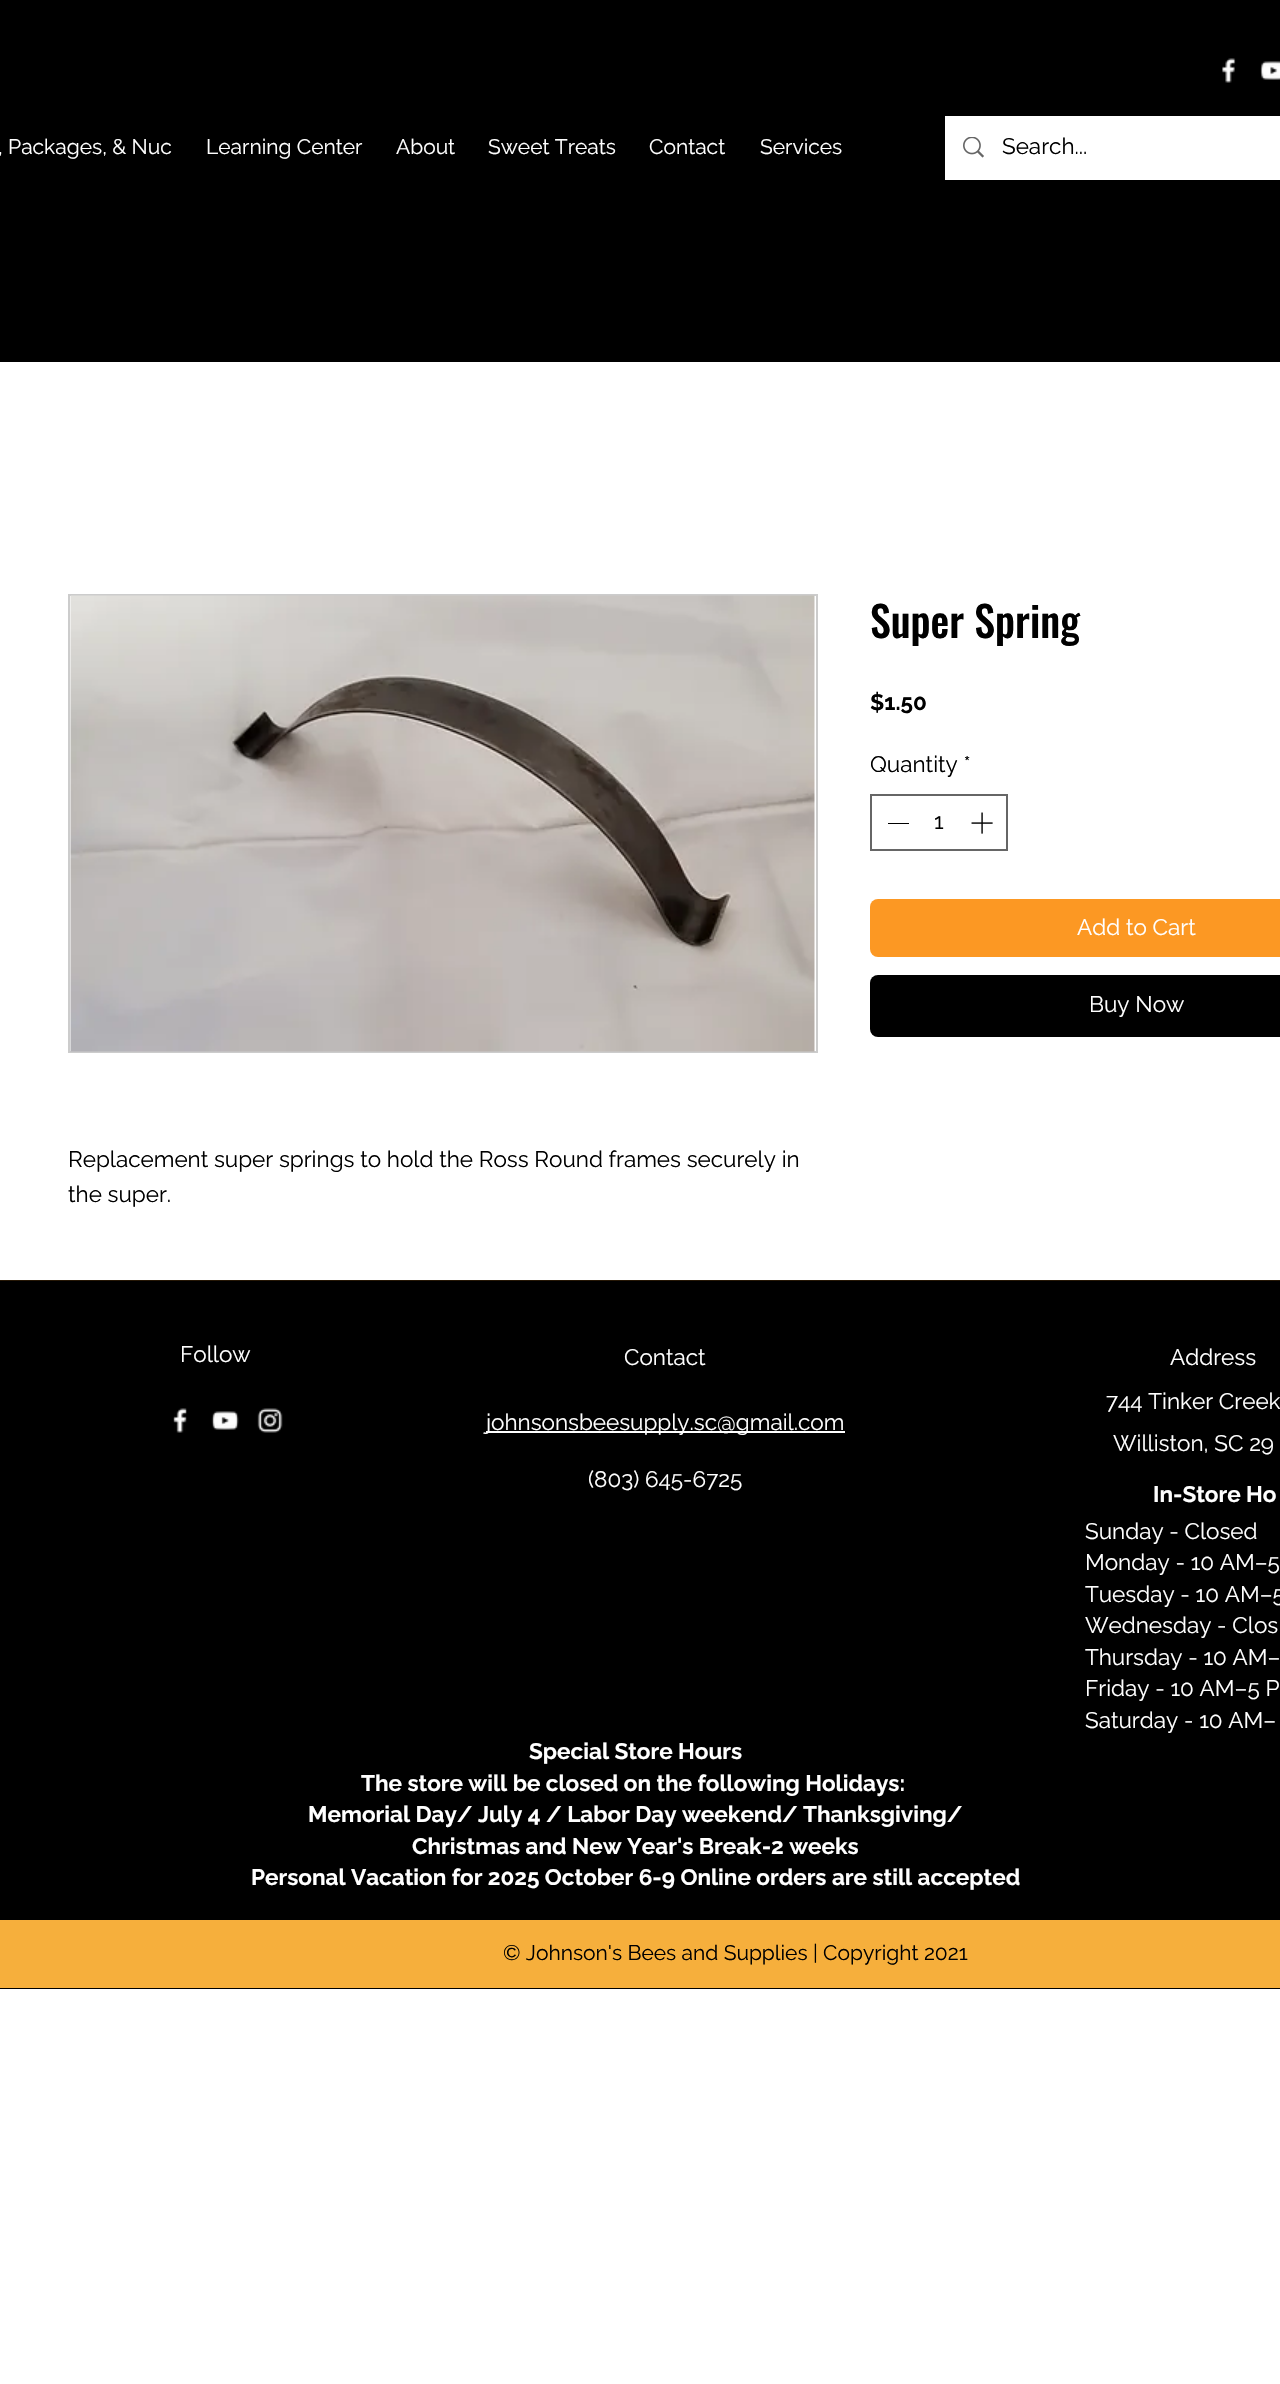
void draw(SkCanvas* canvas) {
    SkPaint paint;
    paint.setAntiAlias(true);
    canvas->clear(0xFFFFFFFF);
    paint.setColor(0xFF000000);
    canvas->drawRect(SkRect::MakeXYWH(0, 0, 1280, 362), paint);
    canvas->drawImageRect(SkImages::DeferredFromEncodedData(SkData::MakeFromFileName("img1.png")), SkRect::MakeXYWH(1222, 58, 14, 25), SkSamplingOptions());
    canvas->drawImageRect(SkImages::DeferredFromEncodedData(SkData::MakeFromFileName("img2.png")), SkRect::MakeXYWH(1260, 61, 20, 19), SkSamplingOptions());
    SkFont font1(fontMgr->matchFamilyStyle("Raleway", SkFontStyle::Normal()), 21);
    font1.setSubpixel(true);
    paint.setColor(0xFFFFFFFF);
    canvas->drawString(", Packages, & Nuc", -2, 154, font1, paint);
    canvas->drawString("Learning Center", 206, 154, font1, paint);
    canvas->drawString("About", 396, 154, font1, paint);
    canvas->drawString("Sweet Treats", 488, 154, font1, paint);
    canvas->drawString("Contact", 649, 154, font1, paint);
    canvas->drawString("Services", 760, 154, font1, paint);
    canvas->drawRect(SkRect::MakeXYWH(945, 116, 335, 64), paint);
    canvas->drawImageRect(SkImages::DeferredFromEncodedData(SkData::MakeFromFileName("img3.png")), SkRect::MakeXYWH(963, 137, 21, 21), SkSamplingOptions());
    SkFont font2(fontMgr->matchFamilyStyle("Raleway", SkFontStyle::Normal()), 22.5f);
    font2.setSubpixel(true);
    paint.setColor(0xFF000000);
    canvas->drawString("Search...", 1002, 154, font2, paint);
    SkFont font3(fontMgr->matchFamilyStyle("Oswald", SkFontStyle(500, SkFontStyle::kNormal_Width, SkFontStyle::kUpright_Slant)), 42);
    font3.setSubpixel(true);
    canvas->drawString("Super Spring", 870, 638, font3, paint);
    SkFont font4(fontMgr->matchFamilyStyle("Raleway", SkFontStyle::Bold()), 22.5f);
    font4.setSubpixel(true);
    canvas->drawString("$1.50", 870, 710, font4, paint);
    canvas->drawString("Quantity *", 870, 772, font2, paint);
    paint.setStyle(SkPaint::kStroke_Style);
    paint.setStrokeWidth(2);
    paint.setColor(0xFF666666);
    canvas->drawRect(SkRect::MakeXYWH(871, 795, 136, 55), paint);
    paint.setStyle(SkPaint::kFill_Style);
    paint.setColor(0xFF000000);
    canvas->drawRect(SkRect::MakeXYWH(888, 823, 21, 1), paint);
    canvas->drawString("1", 934, 829, font2, paint);
    canvas->drawImageRect(SkImages::DeferredFromEncodedData(SkData::MakeFromFileName("img4.png")), SkRect::MakeXYWH(971, 812, 22, 22), SkSamplingOptions());
    paint.setColor(0xFFFC9823);
    canvas->drawRoundRect(SkRect::MakeXYWH(870, 899, 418, 58), 8, 8, paint);
    paint.setColor(0xFFFFFFFF);
    canvas->drawString("Add to Cart", 1077, 935, font2, paint);
    paint.setColor(0xFF000000);
    canvas->drawRoundRect(SkRect::MakeXYWH(870, 975, 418, 62), 8, 8, paint);
    paint.setColor(0xFFFFFFFF);
    canvas->drawString("Buy Now", 1089, 1012, font2, paint);
    paint.setStyle(SkPaint::kStroke_Style);
    paint.setColor(0xFFCCCCCC);
    canvas->drawRect(SkRect::MakeXYWH(69, 595, 748, 457), paint);
    canvas->drawImageRect(SkImages::DeferredFromEncodedData(SkData::MakeFromFileName("img5.png")), SkRect::MakeXYWH(70, 595, 745, 457), SkSamplingOptions());
    paint.setStyle(SkPaint::kFill_Style);
    paint.setColor(0xFF000000);
    canvas->drawString("Replacement super springs to hold the Ross Round frames securely in", 68, 1167, font2, paint);
    canvas->drawString("the super.", 68, 1202, font2, paint);
    paint.setColor(0xFF261705);
    canvas->drawRect(SkRect::MakeXYWH(0, 1280, 1280, 1), paint);
    paint.setColor(0xFF000000);
    canvas->drawRect(SkRect::MakeXYWH(0, 1281, 1280, 708), paint);
    paint.setColor(0xFFFFFFFF);
    canvas->drawString("Follow", 180, 1362, font2, paint);
    canvas->drawString("Contact", 624, 1365, font2, paint);
    canvas->drawString("Address", 1170, 1365, font2, paint);
    canvas->drawImageRect(SkImages::DeferredFromEncodedData(SkData::MakeFromFileName("img6.png")), SkRect::MakeXYWH(173, 1408, 14, 25), SkSamplingOptions());
    canvas->drawImageRect(SkImages::DeferredFromEncodedData(SkData::MakeFromFileName("img7.png")), SkRect::MakeXYWH(211, 1411, 28, 19), SkSamplingOptions());
    canvas->drawImageRect(SkImages::DeferredFromEncodedData(SkData::MakeFromFileName("img8.png")), SkRect::MakeXYWH(257, 1408, 26, 25), SkSamplingOptions());
    canvas->drawRect(SkRect::MakeXYWH(486, 1431, 359, 2), paint);
    canvas->drawString("johnsonsbeesupply.sc@gmail.com", 486, 1430, font2, paint);
    canvas->drawString("744 Tinker Creek", 1106, 1409, font2, paint);
    canvas->drawString("Williston, SC 29", 1113, 1451, font2, paint);
    canvas->drawString("(803) 645-6725", 588, 1487, font2, paint);
    canvas->drawString("In-Store Ho", 1153, 1502, font4, paint);
    canvas->drawString("Sunday - Closed", 1085, 1539, font2, paint);
    canvas->drawString("Monday - 10 AM–5", 1085, 1570, font2, paint);
    canvas->drawString("Tuesday - 10 AM–5", 1085, 1602, font2, paint);
    canvas->drawString("Wednesday - Clos", 1085, 1633, font2, paint);
    canvas->drawString("Thursday - 10 AM–", 1085, 1665, font2, paint);
    canvas->drawString("Friday - 10 AM–5 P", 1085, 1696, font2, paint);
    canvas->drawString("Saturday - 10 AM–", 1085, 1728, font2, paint);
    canvas->drawString("Special Store Hours", 529, 1759, font4, paint);
    canvas->drawString("The store will be closed on the following Holidays:", 361, 1791, font4, paint);
    canvas->drawString("Memorial Day/ July 4 / Labor Day weekend/ Thanksgiving/", 308, 1822, font4, paint);
    canvas->drawString("Christmas and New Year's Break-2 weeks", 412, 1854, font4, paint);
    canvas->drawString("Personal Vacation for 2025 October 6-9 Online orders are still accepted", 251, 1885, font4, paint);
    paint.setColor(0xFFF6AF3C);
    canvas->drawRect(SkRect::MakeXYWH(0, 1920, 1280, 68), paint);
    paint.setColor(0xFF000000);
    canvas->drawString("© Johnson's Bees and Supplies | Copyright 2021", 503, 1960, font1, paint);
}
